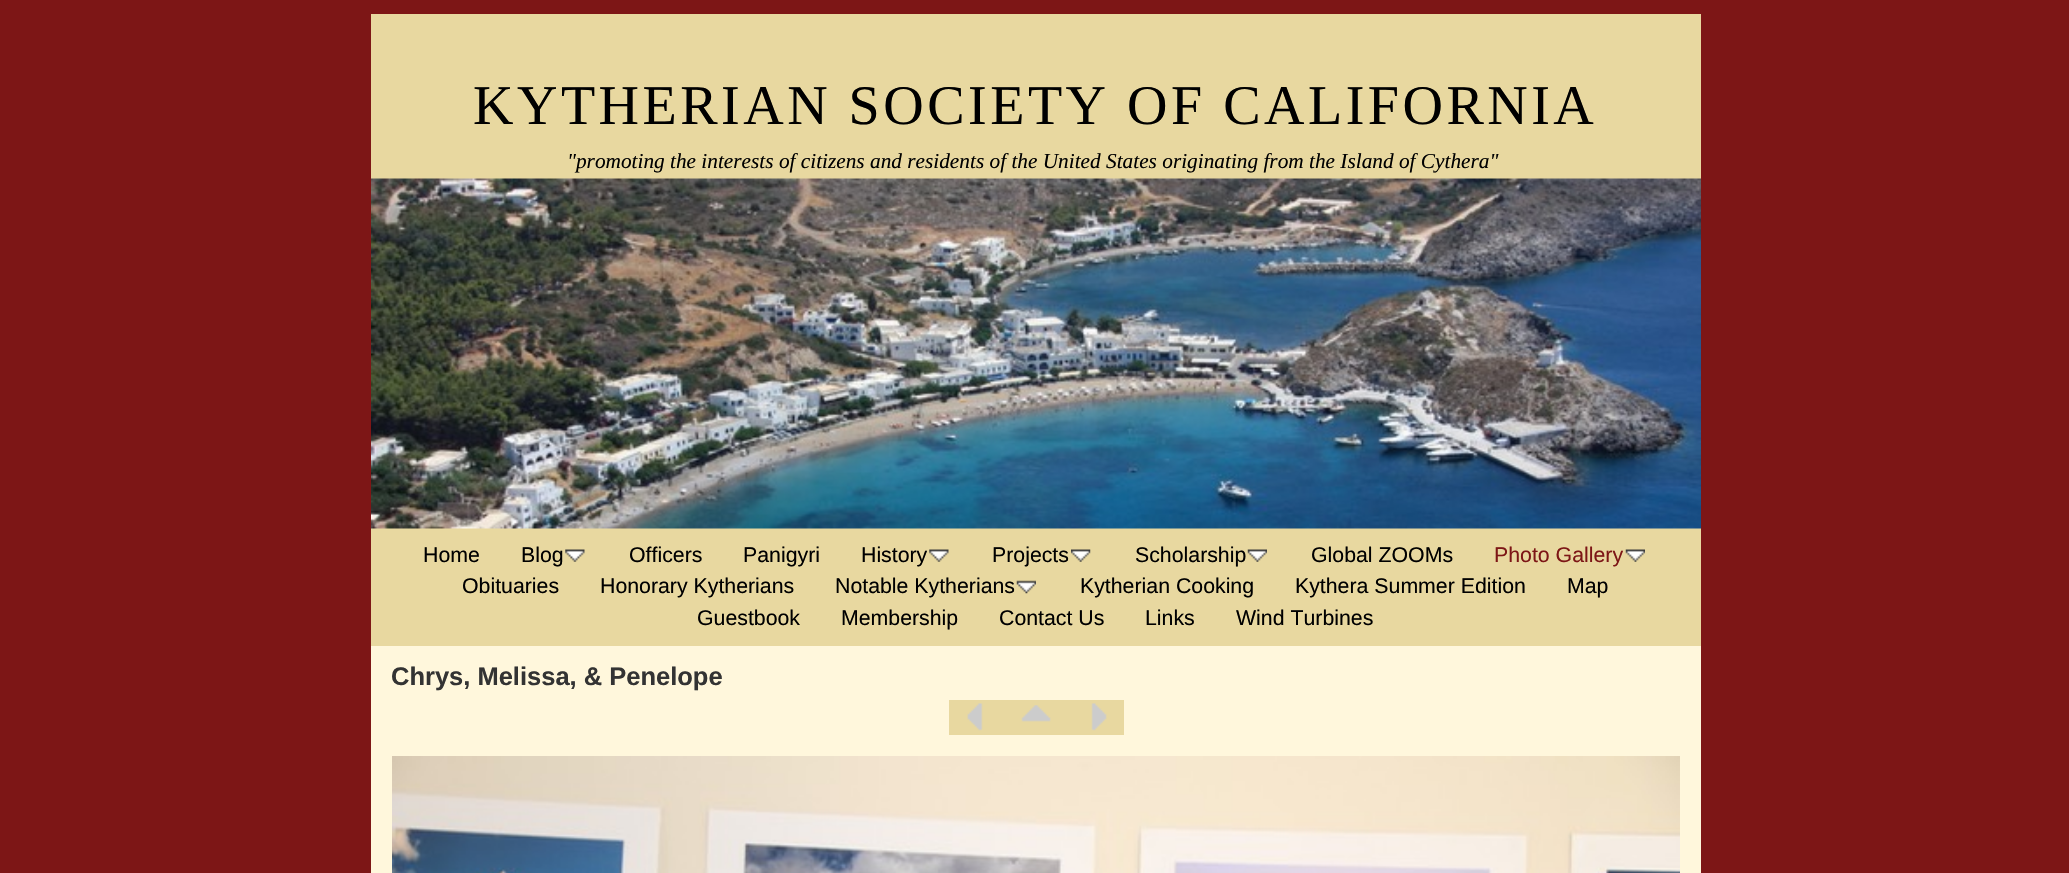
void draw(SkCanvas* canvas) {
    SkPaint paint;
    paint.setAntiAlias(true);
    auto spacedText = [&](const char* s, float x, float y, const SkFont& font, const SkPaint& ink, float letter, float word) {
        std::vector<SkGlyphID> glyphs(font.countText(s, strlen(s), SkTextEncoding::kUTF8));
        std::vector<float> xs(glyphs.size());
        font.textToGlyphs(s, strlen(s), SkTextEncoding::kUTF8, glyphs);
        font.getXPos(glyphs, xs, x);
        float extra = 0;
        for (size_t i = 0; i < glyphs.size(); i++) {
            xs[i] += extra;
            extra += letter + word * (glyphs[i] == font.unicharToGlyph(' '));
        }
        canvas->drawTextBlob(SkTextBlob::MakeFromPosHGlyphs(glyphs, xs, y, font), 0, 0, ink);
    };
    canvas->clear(0xFF7D1616);
    paint.setColor(0xFFFFF7DC);
    canvas->drawRect(SkRect::MakeXYWH(371, 646, 1330, 227), paint);
    paint.setColor(0xFFE8D8A0);
    canvas->drawRect(SkRect::MakeXYWH(371, 14, 1330, 632), paint);
    SkFont font1(fontMgr->matchFamilyStyle("Liberation Serif", SkFontStyle::Normal()), 56);
    font1.setSubpixel(true);
    paint.setColor(0xFF000000);
    spacedText("KYTHERIAN SOCIETY OF CALIFORNIA", 473, 124, font1, paint, 3.5f, 0);
    SkFont font2(fontMgr->matchFamilyStyle("Liberation Serif", SkFontStyle::Italic()), 21.3f);
    font2.setSubpixel(true);
    canvas->drawString("\"promoting the interests of citizens and residents of the United States originating from the Island of Cythera\"", 567, 168, font2, paint);
    canvas->drawImageRect(SkImages::DeferredFromEncodedData(SkData::MakeFromFileName("img1.png")), SkRect::MakeXYWH(371, 178, 1330, 351), SkSamplingOptions());
    SkFont font3(fontMgr->matchFamilyStyle("Liberation Sans", SkFontStyle::Normal()), 21.3f);
    font3.setSubpixel(true);
    canvas->drawString("Home", 423, 562, font3, paint);
    canvas->drawString("Blog", 521, 562, font3, paint);
    canvas->drawImageRect(SkImages::DeferredFromEncodedData(SkData::MakeFromFileName("img2.png")), SkRect::MakeXYWH(565, 549, 20, 13), SkSamplingOptions());
    canvas->drawString("Officers", 629, 562, font3, paint);
    canvas->drawString("Panigyri", 743, 562, font3, paint);
    canvas->drawString("History", 861, 562, font3, paint);
    canvas->drawImageRect(SkImages::DeferredFromEncodedData(SkData::MakeFromFileName("img2.png")), SkRect::MakeXYWH(929, 549, 20, 13), SkSamplingOptions());
    canvas->drawString("Projects", 992, 562, font3, paint);
    canvas->drawImageRect(SkImages::DeferredFromEncodedData(SkData::MakeFromFileName("img3.png")), SkRect::MakeXYWH(1071, 549, 20, 13), SkSamplingOptions());
    canvas->drawString("Scholarship", 1135, 562, font3, paint);
    canvas->drawImageRect(SkImages::DeferredFromEncodedData(SkData::MakeFromFileName("img4.png")), SkRect::MakeXYWH(1247, 549, 20, 13), SkSamplingOptions());
    canvas->drawString("Global ZOOMs", 1311, 562, font3, paint);
    paint.setColor(0xFF7D1616);
    canvas->drawString("Photo Gallery", 1494, 562, font3, paint);
    canvas->drawImageRect(SkImages::DeferredFromEncodedData(SkData::MakeFromFileName("img5.png")), SkRect::MakeXYWH(1625, 549, 20, 13), SkSamplingOptions());
    paint.setColor(0xFF000000);
    canvas->drawString("Obituaries", 462, 593, font3, paint);
    canvas->drawString("Honorary Kytherians", 600, 593, font3, paint);
    canvas->drawString("Notable Kytherians", 835, 593, font3, paint);
    canvas->drawImageRect(SkImages::DeferredFromEncodedData(SkData::MakeFromFileName("img6.png")), SkRect::MakeXYWH(1016, 580, 20, 14), SkSamplingOptions());
    canvas->drawString("Kytherian Cooking", 1080, 593, font3, paint);
    canvas->drawString("Kythera Summer Edition", 1295, 593, font3, paint);
    canvas->drawString("Map", 1567, 593, font3, paint);
    canvas->drawString("Guestbook", 697, 625, font3, paint);
    canvas->drawString("Membership", 841, 625, font3, paint);
    canvas->drawString("Contact Us", 999, 625, font3, paint);
    canvas->drawString("Links", 1145, 625, font3, paint);
    canvas->drawString("Wind Turbines", 1236, 625, font3, paint);
    SkFont font4(fontMgr->matchFamilyStyle("Liberation Sans", SkFontStyle::Bold()), 25.5f);
    font4.setSubpixel(true);
    paint.setColor(0xFF333333);
    canvas->drawString("Chrys, Melissa, & Penelope", 391, 685, font4, paint);
    paint.setColor(0xFFE8D8A0);
    canvas->drawRect(SkRect::MakeXYWH(949, 700, 52, 35), paint);
    canvas->drawImageRect(SkImages::DeferredFromEncodedData(SkData::MakeFromFileName("img7.png")), SkRect::MakeXYWH(967, 703, 16, 28), SkSamplingOptions());
    canvas->drawRect(SkRect::MakeXYWH(1001, 700, 123, 35), paint);
    canvas->drawImageRect(SkImages::DeferredFromEncodedData(SkData::MakeFromFileName("img8.png")), SkRect::MakeXYWH(1091, 703, 16, 28), SkSamplingOptions());
    canvas->drawImageRect(SkImages::DeferredFromEncodedData(SkData::MakeFromFileName("img9.png")), SkRect::MakeXYWH(1021, 705, 30, 17), SkSamplingOptions());
    canvas->drawImageRect(SkImages::DeferredFromEncodedData(SkData::MakeFromFileName("img10.png")), SkRect::MakeXYWH(392, 756, 1288, 117), SkSamplingOptions());
}
